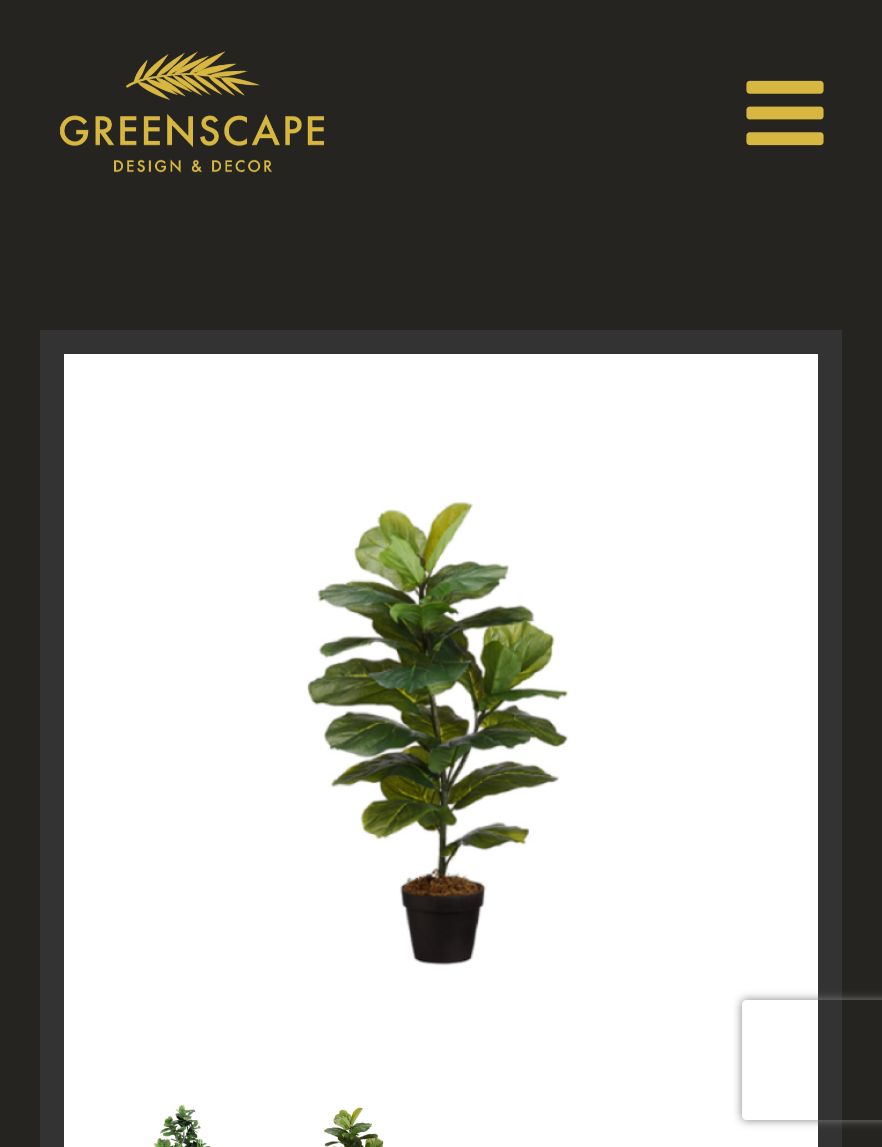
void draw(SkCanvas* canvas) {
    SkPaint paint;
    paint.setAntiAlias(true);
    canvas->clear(0xFF262421);
    canvas->drawImageRect(SkImages::DeferredFromEncodedData(SkData::MakeFromFileName("img1.png")), SkRect::MakeXYWH(59, 51, 266, 122), SkSamplingOptions());
    canvas->drawImageRect(SkImages::DeferredFromEncodedData(SkData::MakeFromFileName("img2.png")), SkRect::MakeXYWH(746, 80, 78, 66), SkSamplingOptions());
    paint.setColor(0xFFFFFFFF);
    canvas->drawRect(SkRect::MakeXYWH(52, 342, 778, 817), paint);
    paint.setStyle(SkPaint::kStroke_Style);
    paint.setStrokeWidth(24);
    paint.setColor(0xFF333333);
    canvas->drawRect(SkRect::MakeXYWH(52, 342, 778, 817), paint);
    canvas->drawImageRect(SkImages::DeferredFromEncodedData(SkData::MakeFromFileName("img3.png")), SkRect::MakeXYWH(307, 501, 262, 465), SkSamplingOptions());
    canvas->drawImageRect(SkImages::DeferredFromEncodedData(SkData::MakeFromFileName("img4.png")), SkRect::MakeXYWH(153, 1105, 58, 42), SkSamplingOptions());
    canvas->drawImageRect(SkImages::DeferredFromEncodedData(SkData::MakeFromFileName("img5.png")), SkRect::MakeXYWH(324, 1107, 60, 40), SkSamplingOptions());
    canvas->save();
    canvas->clipPath(SkPathBuilder(SkPathFillType::kEvenOdd).moveTo(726, 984).lineTo(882, 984).lineTo(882, 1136).lineTo(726, 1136).close().moveTo(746, 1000).lineTo(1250, 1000).cubicTo(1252, 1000, 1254, 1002, 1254, 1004).lineTo(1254, 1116).cubicTo(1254, 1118, 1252, 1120, 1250, 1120).lineTo(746, 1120).cubicTo(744, 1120, 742, 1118, 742, 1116).lineTo(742, 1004).cubicTo(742, 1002, 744, 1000, 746, 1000).close().detach(), true);
    paint.setStyle(SkPaint::kFill_Style);
    paint.setColor(0xFF808080);
    paint.setMaskFilter(SkMaskFilter::MakeBlur(kNormal_SkBlurStyle, 5));
    canvas->drawRoundRect(SkRect::MakeXYWH(742, 1000, 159, 120), 4, 4, paint);
    paint.setMaskFilter(nullptr);
    canvas->restore();
}
